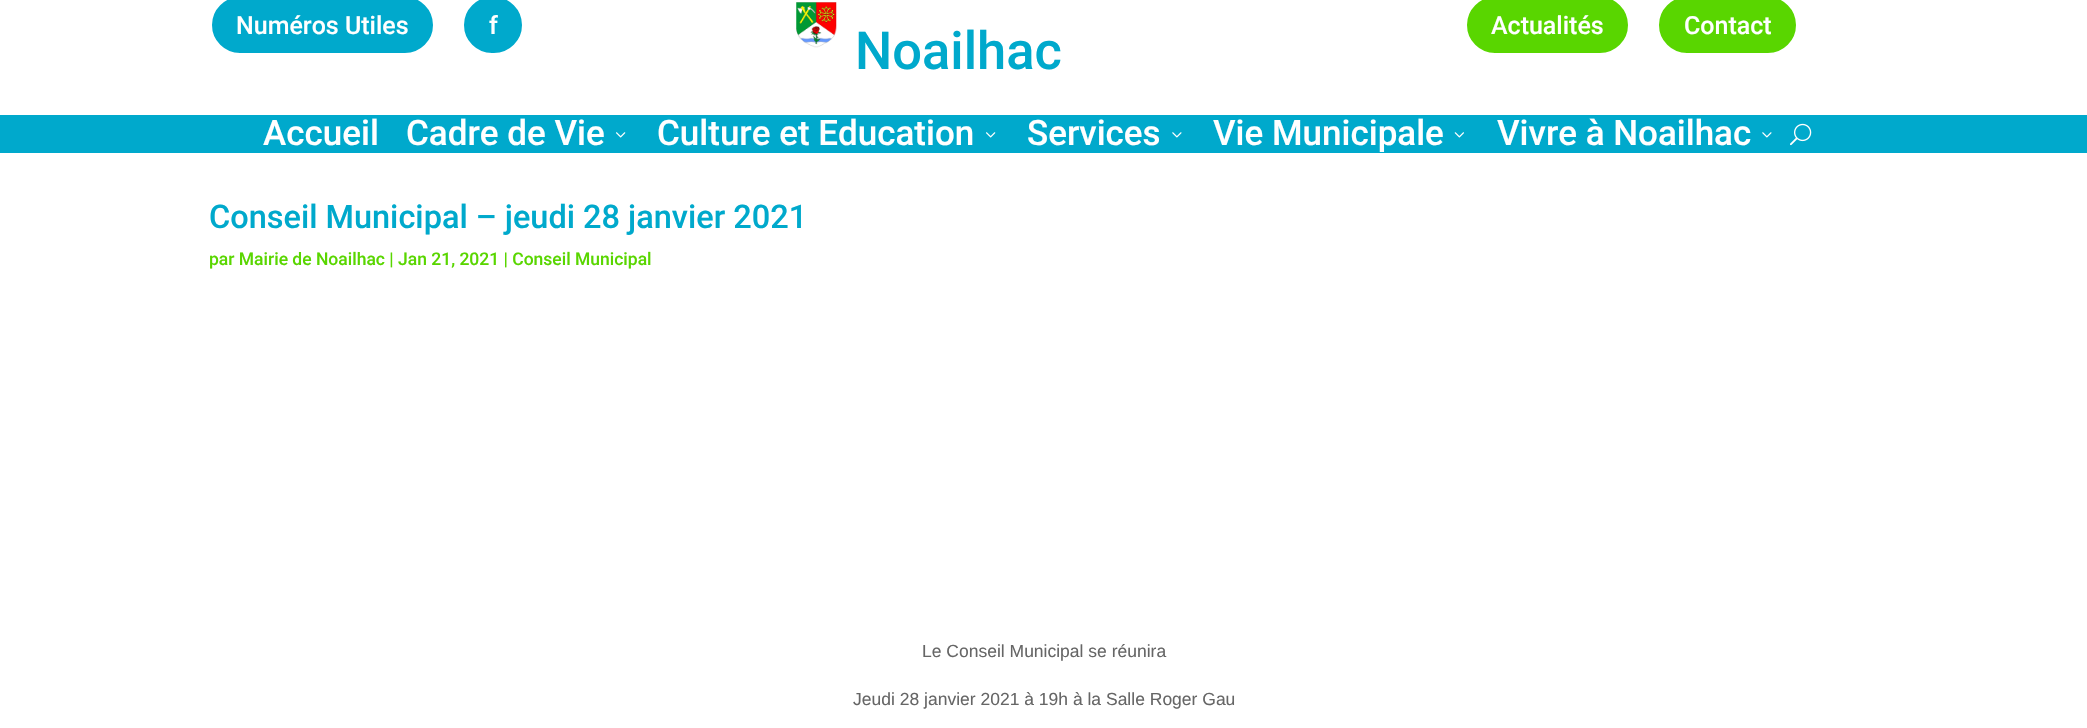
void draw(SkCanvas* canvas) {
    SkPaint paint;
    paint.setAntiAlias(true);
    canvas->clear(0xFFFFFFFF);
    paint.setColor(0xFF00A9CC);
    canvas->drawRoundRect(SkRect::MakeXYWH(210.5f, -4.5f, 224, 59), 29.5f, 29.5f, paint);
    paint.setStyle(SkPaint::kStroke_Style);
    paint.setStrokeWidth(3);
    paint.setColor(0xFFFFFFFF);
    canvas->drawRoundRect(SkRect::MakeXYWH(210.5f, -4.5f, 224, 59), 29.5f, 29.5f, paint);
    SkFont font1(fontMgr->matchFamilyStyle("Roboto", SkFontStyle(500, SkFontStyle::kNormal_Width, SkFontStyle::kUpright_Slant)), 25);
    font1.setSubpixel(true);
    paint.setStyle(SkPaint::kFill_Style);
    canvas->drawString("Numéros Utiles", 236, 34, font1, paint);
    paint.setColor(0xFF00A9CC);
    canvas->drawRoundRect(SkRect::MakeXYWH(462.5f, -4.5f, 61, 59), 29.5f, 29.5f, paint);
    paint.setStyle(SkPaint::kStroke_Style);
    paint.setColor(0xFFFFFFFF);
    canvas->drawRoundRect(SkRect::MakeXYWH(462.5f, -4.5f, 61, 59), 29.5f, 29.5f, paint);
    paint.setStyle(SkPaint::kFill_Style);
    canvas->drawString("f", 489, 34, font1, paint);
    paint.setColor(0xFF59D600);
    canvas->drawRoundRect(SkRect::MakeXYWH(1465.5f, -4.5f, 164, 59), 29.5f, 29.5f, paint);
    paint.setStyle(SkPaint::kStroke_Style);
    paint.setColor(0xFFFFFFFF);
    canvas->drawRoundRect(SkRect::MakeXYWH(1465.5f, -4.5f, 164, 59), 29.5f, 29.5f, paint);
    paint.setStyle(SkPaint::kFill_Style);
    canvas->drawString("Actualités", 1491, 34, font1, paint);
    paint.setColor(0xFF59D600);
    canvas->drawRoundRect(SkRect::MakeXYWH(1657.5f, -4.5f, 140, 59), 29.5f, 29.5f, paint);
    paint.setStyle(SkPaint::kStroke_Style);
    paint.setColor(0xFFFFFFFF);
    canvas->drawRoundRect(SkRect::MakeXYWH(1657.5f, -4.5f, 140, 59), 29.5f, 29.5f, paint);
    paint.setStyle(SkPaint::kFill_Style);
    canvas->drawString("Contact", 1684, 34, font1, paint);
    canvas->drawImageRect(SkImages::DeferredFromEncodedData(SkData::MakeFromFileName("img1.png")), SkRect::MakeXYWH(796, 2, 41, 46), SkSamplingOptions());
    SkFont font2(fontMgr->matchFamilyStyle("Roboto", SkFontStyle(500, SkFontStyle::kNormal_Width, SkFontStyle::kUpright_Slant)), 52.5f);
    font2.setSubpixel(true);
    paint.setColor(0xFF00A9CC);
    canvas->drawString("Noailhac", 855, 69, font2, paint);
    canvas->drawRect(SkRect::MakeXYWH(0, 115, 2087, 38), paint);
    SkFont font3(fontMgr->matchFamilyStyle("Roboto", SkFontStyle(500, SkFontStyle::kNormal_Width, SkFontStyle::kUpright_Slant)), 35);
    font3.setSubpixel(true);
    paint.setColor(0xFFFFFFFF);
    canvas->drawString("Accueil", 263, 145, font3, paint);
    canvas->drawString("Cadre de Vie", 406, 145, font3, paint);
    canvas->drawImageRect(SkImages::DeferredFromEncodedData(SkData::MakeFromFileName("img2.png")), SkRect::MakeXYWH(616, 132, 10, 6), SkSamplingOptions());
    canvas->drawString("Culture et Education", 657, 145, font3, paint);
    canvas->drawImageRect(SkImages::DeferredFromEncodedData(SkData::MakeFromFileName("img2.png")), SkRect::MakeXYWH(986, 132, 10, 6), SkSamplingOptions());
    canvas->drawString("Services", 1027, 145, font3, paint);
    canvas->drawImageRect(SkImages::DeferredFromEncodedData(SkData::MakeFromFileName("img3.png")), SkRect::MakeXYWH(1172, 132, 10, 6), SkSamplingOptions());
    canvas->drawString("Vie Municipale", 1213, 145, font3, paint);
    canvas->drawImageRect(SkImages::DeferredFromEncodedData(SkData::MakeFromFileName("img4.png")), SkRect::MakeXYWH(1454, 132, 10, 6), SkSamplingOptions());
    canvas->drawString("Vivre à Noailhac", 1497, 145, font3, paint);
    canvas->drawImageRect(SkImages::DeferredFromEncodedData(SkData::MakeFromFileName("img3.png")), SkRect::MakeXYWH(1762, 132, 10, 6), SkSamplingOptions());
    canvas->drawImageRect(SkImages::DeferredFromEncodedData(SkData::MakeFromFileName("img5.png")), SkRect::MakeXYWH(1790, 123, 22, 23), SkSamplingOptions());
    SkFont font4(fontMgr->matchFamilyStyle("Roboto", SkFontStyle(500, SkFontStyle::kNormal_Width, SkFontStyle::kUpright_Slant)), 32.5f);
    font4.setSubpixel(true);
    paint.setColor(0xFF00A9CC);
    canvas->drawString("Conseil Municipal – jeudi 28 janvier 2021", 209, 228, font4, paint);
    SkFont font5(fontMgr->matchFamilyStyle("Roboto", SkFontStyle(500, SkFontStyle::kNormal_Width, SkFontStyle::kUpright_Slant)), 17.5f);
    font5.setSubpixel(true);
    paint.setColor(0xFF59D600);
    canvas->drawString("par Mairie de Noailhac | Jan 21, 2021 | Conseil Municipal", 209, 265, font5, paint);
    SkFont font6(fontMgr->matchFamilyStyle("Liberation Sans", SkFontStyle::Normal()), 17.5f);
    font6.setSubpixel(true);
    paint.setColor(0xFF666666);
    canvas->drawString("Le Conseil Municipal se réunira", 922, 657, font6, paint);
    canvas->drawString("Jeudi 28 janvier 2021 à 19h à la Salle Roger Gau", 853, 705, font6, paint);
}
